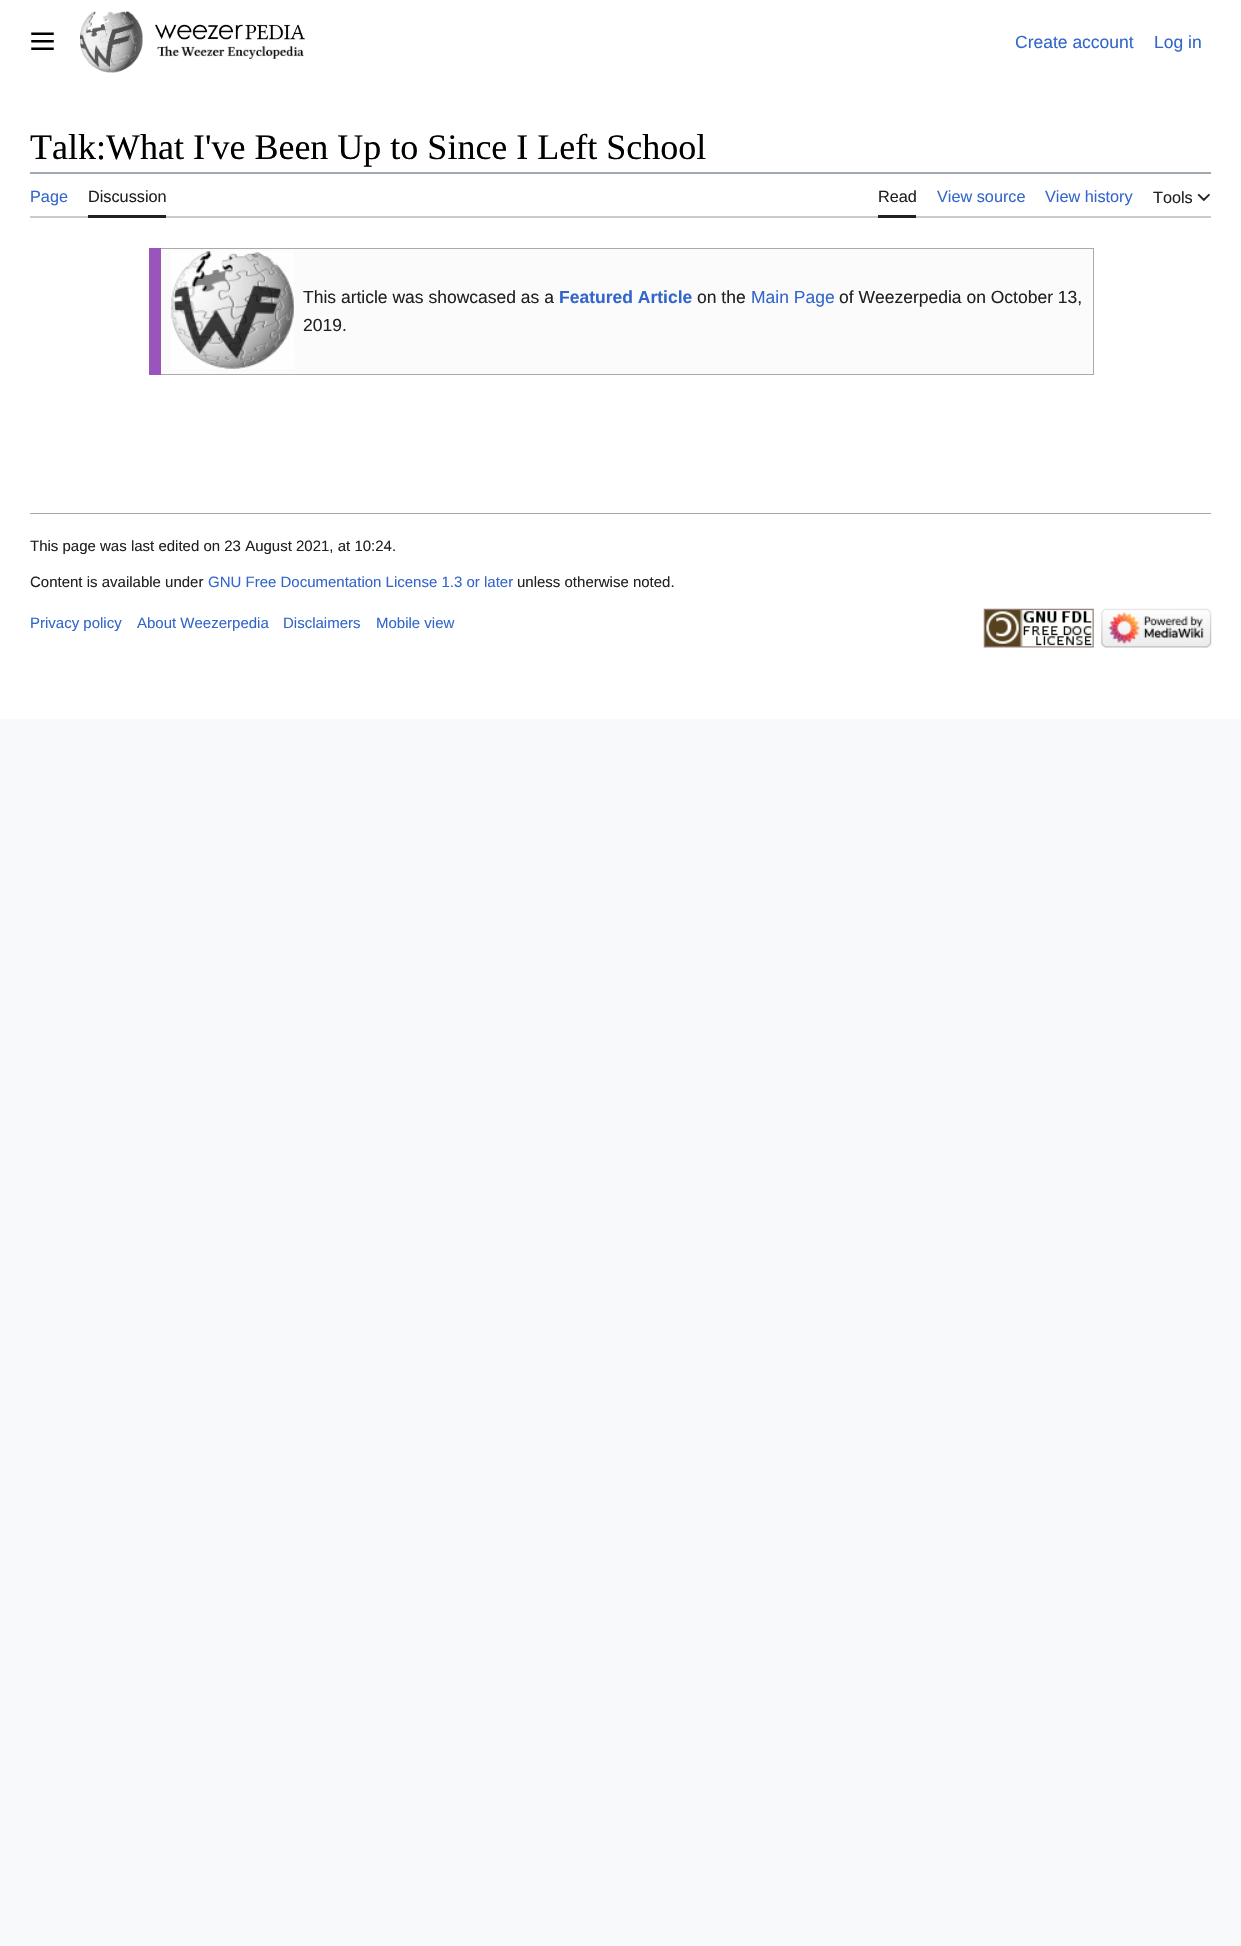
void draw(SkCanvas* canvas) {
    SkPaint paint;
    paint.setAntiAlias(true);
    canvas->clear(0xFFF8F9FA);
    paint.setColor(0xFFFFFFFF);
    canvas->drawRect(SkRect::MakeXYWH(0, 0, 1241, 719), paint);
    canvas->drawImageRect(SkImages::DeferredFromEncodedData(SkData::MakeFromFileName("img1.png")), SkRect::MakeXYWH(31, 32, 23, 18), SkSamplingOptions());
    canvas->drawImageRect(SkImages::DeferredFromEncodedData(SkData::MakeFromFileName("img2.png")), SkRect::MakeXYWH(80, 11, 63, 62), SkSamplingOptions());
    canvas->drawImageRect(SkImages::DeferredFromEncodedData(SkData::MakeFromFileName("img3.png")), SkRect::MakeXYWH(155, 24, 150, 16), SkSamplingOptions());
    canvas->drawImageRect(SkImages::DeferredFromEncodedData(SkData::MakeFromFileName("img4.png")), SkRect::MakeXYWH(157, 46, 147, 13), SkSamplingOptions());
    SkFont font1(fontMgr->matchFamilyStyle("Liberation Sans", SkFontStyle::Normal()), 17.5f);
    font1.setSubpixel(true);
    paint.setColor(0xFF3366CC);
    canvas->drawString("Create account", 1015, 48, font1, paint);
    canvas->drawString("Log in", 1154, 48, font1, paint);
    paint.setColor(0xFFA2A9B1);
    canvas->drawRect(SkRect::MakeXYWH(30, 172, 1181, 2), paint);
    SkFont font2(fontMgr->matchFamilyStyle("Liberation Serif", SkFontStyle::Normal()), 36);
    font2.setSubpixel(true);
    paint.setColor(0xFF000000);
    canvas->drawString("Talk:What I've Been Up to Since I Left School", 30, 159, font2, paint);
    paint.setColor(0xFFC8CCD1);
    canvas->drawRect(SkRect::MakeXYWH(30, 216, 1181, 2), paint);
    SkFont font3(fontMgr->matchFamilyStyle("Liberation Sans", SkFontStyle::Normal()), 16.25f);
    font3.setSubpixel(true);
    paint.setColor(0xFF3366CC);
    canvas->drawString("Page", 30, 202, font3, paint);
    paint.setColor(0xFF202122);
    canvas->drawRect(SkRect::MakeXYWH(88, 215, 78, 3), paint);
    canvas->drawString("Discussion", 88, 202, font3, paint);
    canvas->drawRect(SkRect::MakeXYWH(878, 215, 38, 3), paint);
    canvas->drawString("Read", 878, 202, font3, paint);
    paint.setColor(0xFF3366CC);
    canvas->drawString("View source", 937, 202, font3, paint);
    canvas->drawString("View history", 1045, 202, font3, paint);
    paint.setColor(0xFF202122);
    canvas->drawString("Tools", 1153, 203, font3, paint);
    canvas->drawImageRect(SkImages::DeferredFromEncodedData(SkData::MakeFromFileName("img5.png")), SkRect::MakeXYWH(1197, 193, 13, 9), SkSamplingOptions());
    paint.setColor(0xFFFBFBFB);
    canvas->drawRect(SkRect::MakeXYWH(161, 249, 932, 125), paint);
    paint.setColor(0xFFAAAAAA);
    canvas->drawRect(SkRect::MakeXYWH(161, 248, 933, 1), paint);
    canvas->drawRect(SkRect::MakeXYWH(1093, 248, 1, 127), paint);
    canvas->drawRect(SkRect::MakeXYWH(161, 374, 933, 1), paint);
    paint.setColor(0xFF9955BB);
    canvas->drawRect(SkRect::MakeXYWH(149, 248, 12, 127), paint);
    canvas->drawImageRect(SkImages::DeferredFromEncodedData(SkData::MakeFromFileName("img6.png")), SkRect::MakeXYWH(171, 251, 123, 118), SkSamplingOptions());
    paint.setColor(0xFF202122);
    canvas->drawString("This article was showcased as a", 303, 303, font1, paint);
    SkFont font4(fontMgr->matchFamilyStyle("Liberation Sans", SkFontStyle::Bold()), 17.5f);
    font4.setSubpixel(true);
    paint.setColor(0xFF3366CC);
    canvas->drawString("Featured Article", 559, 303, font4, paint);
    paint.setColor(0xFF202122);
    canvas->drawString("on the", 697, 303, font1, paint);
    paint.setColor(0xFF3366CC);
    canvas->drawString("Main Page", 751, 303, font1, paint);
    paint.setColor(0xFF202122);
    canvas->drawString("of Weezerpedia on October 13,", 839, 303, font1, paint);
    canvas->drawString("2019.", 303, 331, font1, paint);
    paint.setColor(0xFFA2A9B1);
    canvas->drawRect(SkRect::MakeXYWH(30, 513, 1181, 1), paint);
    SkFont font5(fontMgr->matchFamilyStyle("Liberation Sans", SkFontStyle::Normal()), 15);
    font5.setSubpixel(true);
    paint.setColor(0xFF202122);
    canvas->drawString("This page was last edited on 23 August 2021, at 10:24.", 30, 551, font5, paint);
    canvas->drawString("Content is available under", 30, 587, font5, paint);
    paint.setColor(0xFF3366CC);
    canvas->drawString("GNU Free Documentation License 1.3 or later", 208, 587, font5, paint);
    paint.setColor(0xFF202122);
    canvas->drawString("unless otherwise noted.", 517, 587, font5, paint);
    paint.setColor(0xFF3366CC);
    canvas->drawString("Privacy policy", 30, 628, font5, paint);
    canvas->drawString("About Weezerpedia", 137, 628, font5, paint);
    canvas->drawString("Disclaimers", 283, 628, font5, paint);
    canvas->drawString("Mobile view", 376, 628, font5, paint);
    canvas->drawImageRect(SkImages::DeferredFromEncodedData(SkData::MakeFromFileName("img7.png")), SkRect::MakeXYWH(983, 608, 111, 40), SkSamplingOptions());
    canvas->drawImageRect(SkImages::DeferredFromEncodedData(SkData::MakeFromFileName("img8.png")), SkRect::MakeXYWH(1101, 608, 111, 40), SkSamplingOptions());
}
